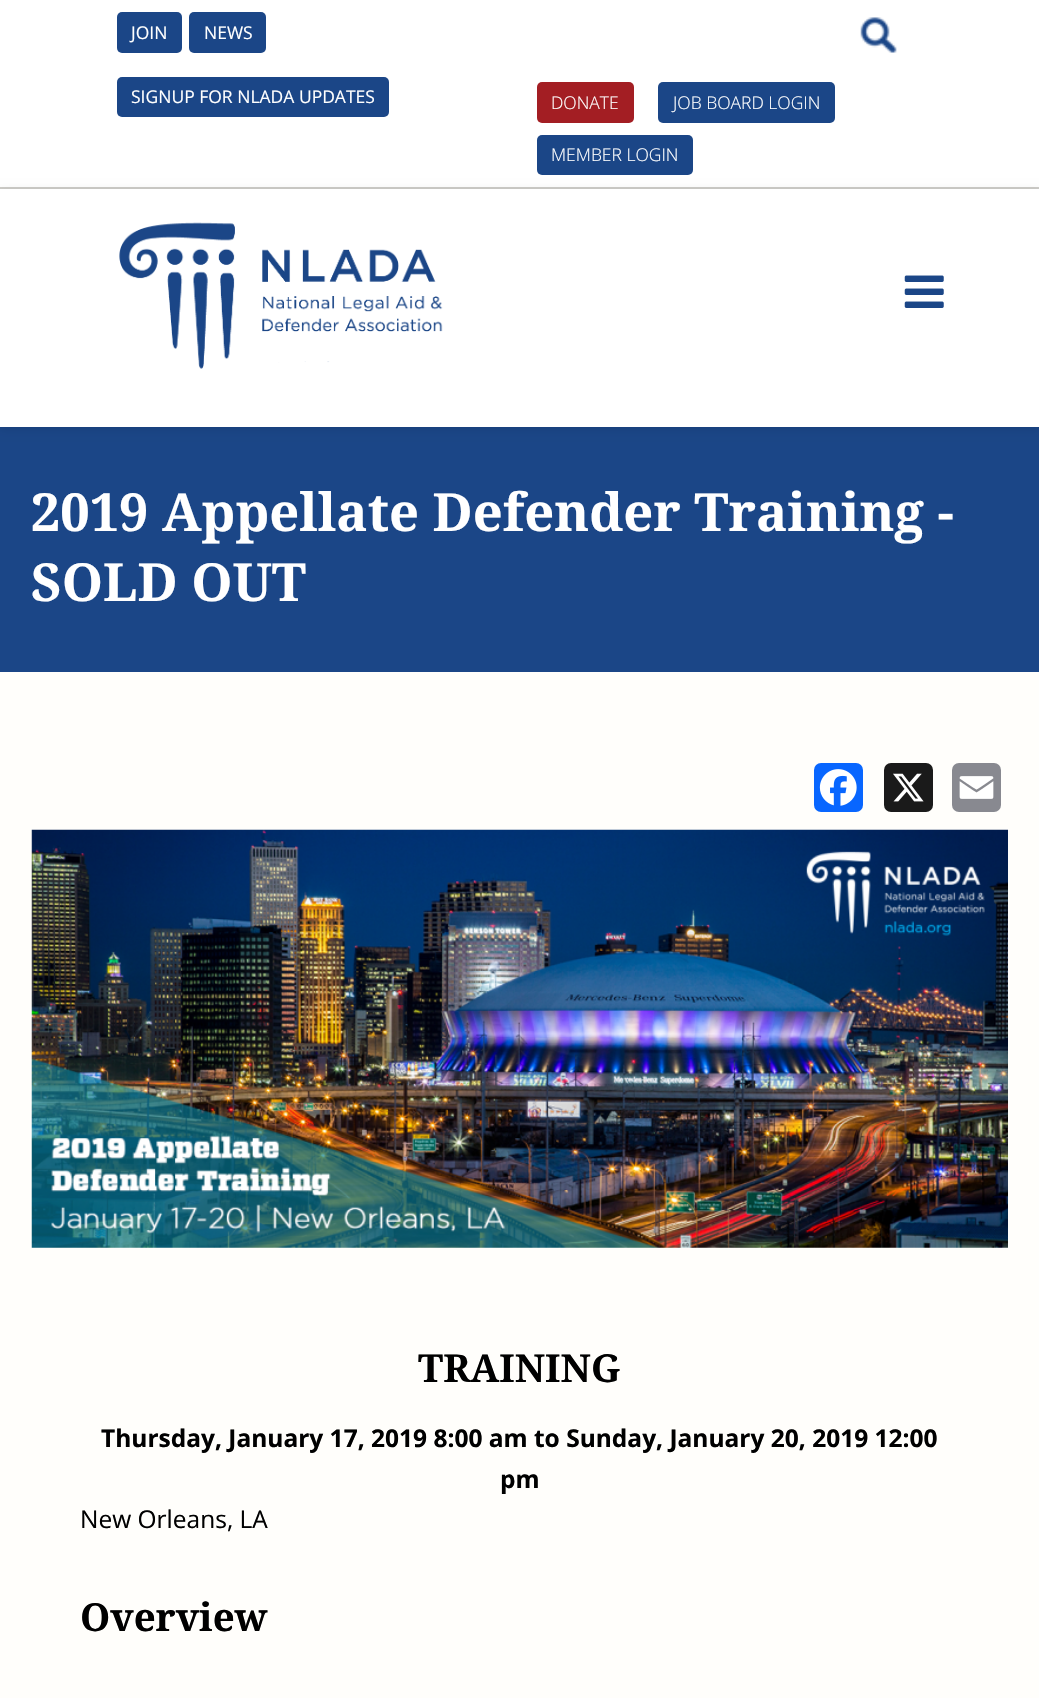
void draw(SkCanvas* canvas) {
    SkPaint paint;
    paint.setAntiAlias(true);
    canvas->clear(0xFFFFFFFF);
    paint.setColor(0xFFCDCCC8);
    canvas->drawRect(SkRect::MakeXYWH(0, 187, 1039, 2), paint);
    paint.setColor(0xFF1B4687);
    canvas->drawRoundRect(SkRect::MakeXYWH(117, 12, 65, 41), 5, 5, paint);
    SkFont font1(fontMgr->matchFamilyStyle("Open Sans", SkFontStyle::Normal()), 17.5f);
    font1.setSubpixel(true);
    paint.setColor(0xFFFFFFFF);
    canvas->drawString("JOIN", 131, 39, font1, paint);
    paint.setColor(0xFF1B4687);
    canvas->drawRoundRect(SkRect::MakeXYWH(189, 12, 77, 41), 5, 5, paint);
    paint.setColor(0xFFFFFFFF);
    canvas->drawString("NEWS", 204, 39, font1, paint);
    paint.setColor(0xFF1B4687);
    canvas->drawRoundRect(SkRect::MakeXYWH(117, 77, 272, 40), 5, 5, paint);
    paint.setColor(0xFFFFFFFF);
    canvas->drawString("SIGNUP FOR NLADA UPDATES", 131, 103, font1, paint);
    canvas->drawImageRect(SkImages::DeferredFromEncodedData(SkData::MakeFromFileName("img1.png")), SkRect::MakeXYWH(860, 17, 37, 36), SkSamplingOptions());
    paint.setColor(0xFFA31E23);
    canvas->drawRoundRect(SkRect::MakeXYWH(537, 82, 97, 41), 5, 5, paint);
    SkFont font2(fontMgr->matchFamilyStyle("Open Sans", SkFontStyle(300, SkFontStyle::kNormal_Width, SkFontStyle::kUpright_Slant)), 17.5f);
    font2.setSubpixel(true);
    paint.setColor(0xFFFFFFFF);
    canvas->drawString("DONATE", 551, 109, font2, paint);
    paint.setColor(0xFF1B4687);
    canvas->drawRoundRect(SkRect::MakeXYWH(658, 82, 177, 41), 5, 5, paint);
    paint.setColor(0xFFFFFFFF);
    canvas->drawString("JOB BOARD LOGIN", 673, 109, font2, paint);
    paint.setColor(0xFF1B4687);
    canvas->drawRoundRect(SkRect::MakeXYWH(537, 135, 156, 40), 5, 5, paint);
    paint.setColor(0xFFFFFFFF);
    canvas->drawString("MEMBER LOGIN", 551, 161, font2, paint);
    paint.setColor(0xFF1B4687);
    canvas->drawRect(SkRect::MakeXYWH(0, 427, 1039, 245), paint);
    paint.setColor(0x1A000000);
    paint.setMaskFilter(SkMaskFilter::MakeBlur(kNormal_SkBlurStyle, 4.5f));
    canvas->drawRect(SkRect::MakeXYWH(0, 191, 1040, 238), paint);
    paint.setMaskFilter(nullptr);
    paint.setColor(0xFFFFFFFF);
    canvas->drawRect(SkRect::MakeXYWH(0, 189, 1039, 238), paint);
    canvas->drawImageRect(SkImages::DeferredFromEncodedData(SkData::MakeFromFileName("img2.png")), SkRect::MakeXYWH(119, 222, 324, 147), SkSamplingOptions());
    canvas->drawImageRect(SkImages::DeferredFromEncodedData(SkData::MakeFromFileName("img3.png")), SkRect::MakeXYWH(904, 275, 40, 33), SkSamplingOptions());
    SkFont font3(fontMgr->matchFamilyStyle("Droid Serif", SkFontStyle::Bold()), 52.5f);
    font3.setSubpixel(true);
    canvas->drawString("2019 Appellate Defender Training -", 31, 531, font3, paint);
    canvas->drawString("SOLD OUT", 31, 601, font3, paint);
    paint.setColor(0xFFFFFEFB);
    canvas->drawRect(SkRect::MakeXYWH(0, 672, 1039, 1026), paint);
    paint.setColor(0xFF0866FF);
    canvas->drawRoundRect(SkRect::MakeXYWH(814, 763, 49, 49), 7, 7, paint);
    canvas->drawImageRect(SkImages::DeferredFromEncodedData(SkData::MakeFromFileName("img4.png")), SkRect::MakeXYWH(819, 769, 38, 37), SkSamplingOptions());
    paint.setColor(0xFF1A1A1A);
    canvas->drawRoundRect(SkRect::MakeXYWH(884, 763, 49, 49), 7, 7, paint);
    canvas->drawImageRect(SkImages::DeferredFromEncodedData(SkData::MakeFromFileName("img5.png")), SkRect::MakeXYWH(893, 773, 31, 29), SkSamplingOptions());
    paint.setColor(0xFF888990);
    canvas->drawRoundRect(SkRect::MakeXYWH(952, 763, 49, 49), 7, 7, paint);
    canvas->drawImageRect(SkImages::DeferredFromEncodedData(SkData::MakeFromFileName("img6.png")), SkRect::MakeXYWH(959, 776, 35, 23), SkSamplingOptions());
    canvas->drawImageRect(SkImages::DeferredFromEncodedData(SkData::MakeFromFileName("img7.png")), SkRect::MakeXYWH(31, 829, 977, 419), SkSamplingOptions());
    SkFont font4(fontMgr->matchFamilyStyle("Droid Serif", SkFontStyle::Bold()), 38.5f);
    font4.setSubpixel(true);
    paint.setColor(0xFF000000);
    canvas->drawString("TRAINING", 418, 1382, font4, paint);
    SkFont font5(fontMgr->matchFamilyStyle("Open Sans", SkFontStyle::Bold()), 24.5f);
    font5.setSubpixel(true);
    canvas->drawString("Thursday, January 17, 2019 8:00 am to Sunday, January 20, 2019 12:00", 101, 1447, font5, paint);
    canvas->drawString("pm", 500, 1488, font5, paint);
    SkFont font6(fontMgr->matchFamilyStyle("Open Sans", SkFontStyle::Normal()), 24.5f);
    font6.setSubpixel(true);
    canvas->drawString("New Orleans, LA", 80, 1528, font6, paint);
    canvas->drawString("Overview", 80, 1631, font4, paint);
}
